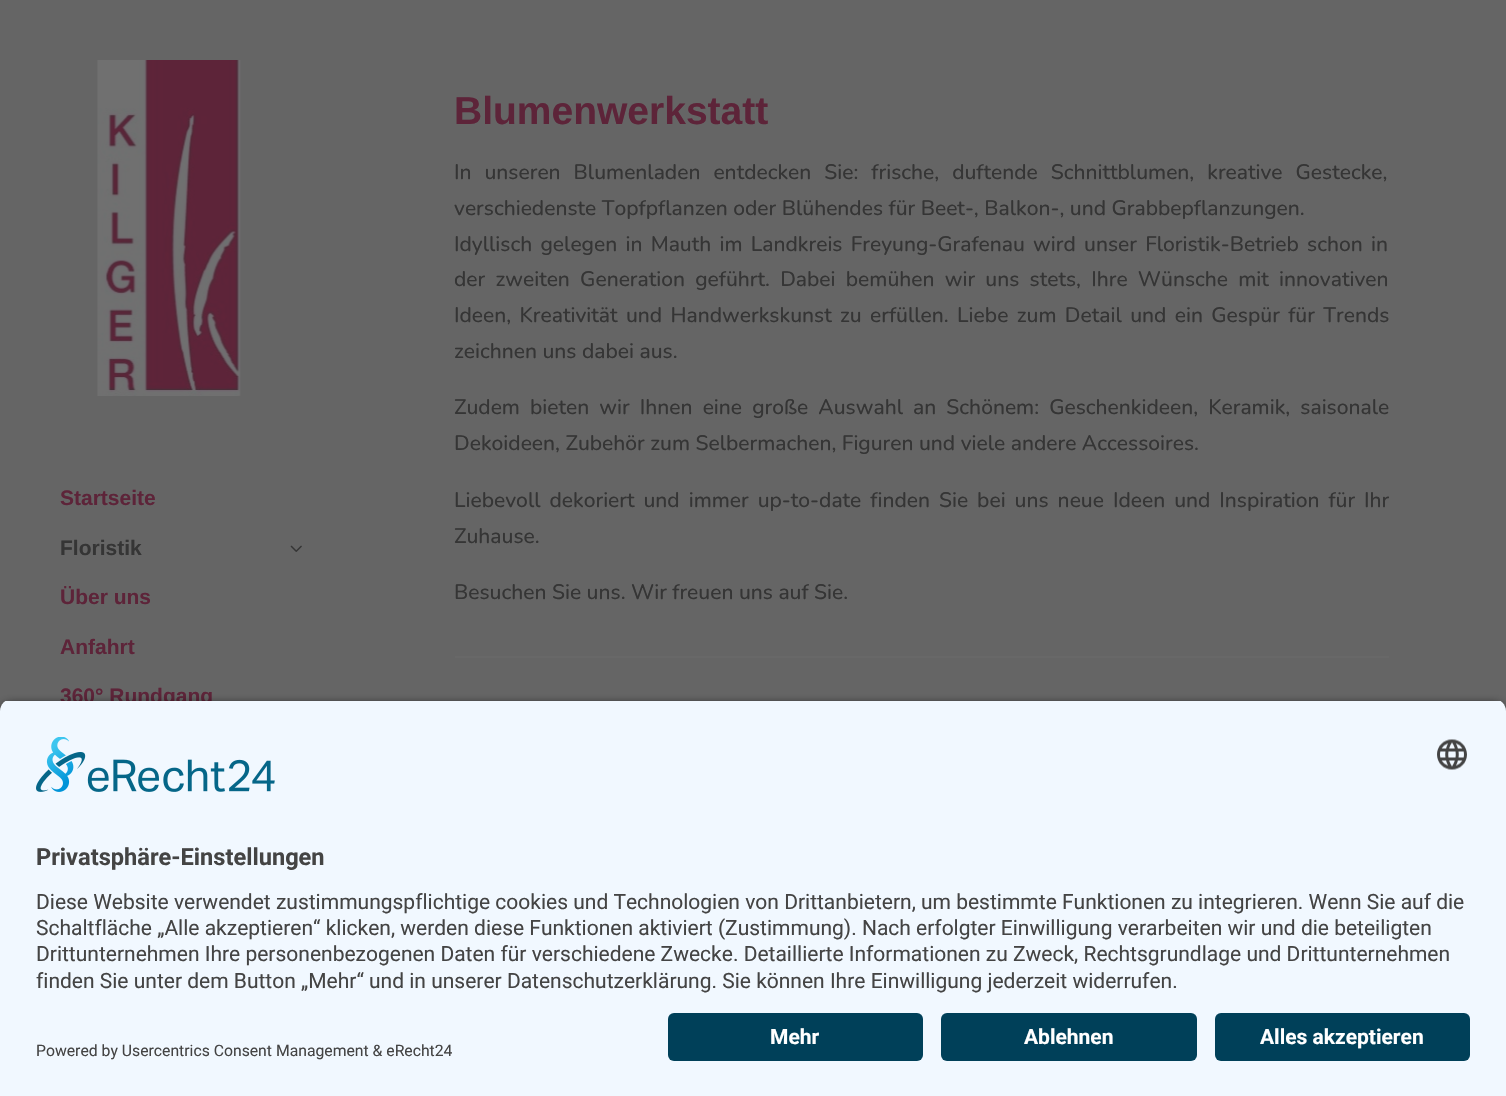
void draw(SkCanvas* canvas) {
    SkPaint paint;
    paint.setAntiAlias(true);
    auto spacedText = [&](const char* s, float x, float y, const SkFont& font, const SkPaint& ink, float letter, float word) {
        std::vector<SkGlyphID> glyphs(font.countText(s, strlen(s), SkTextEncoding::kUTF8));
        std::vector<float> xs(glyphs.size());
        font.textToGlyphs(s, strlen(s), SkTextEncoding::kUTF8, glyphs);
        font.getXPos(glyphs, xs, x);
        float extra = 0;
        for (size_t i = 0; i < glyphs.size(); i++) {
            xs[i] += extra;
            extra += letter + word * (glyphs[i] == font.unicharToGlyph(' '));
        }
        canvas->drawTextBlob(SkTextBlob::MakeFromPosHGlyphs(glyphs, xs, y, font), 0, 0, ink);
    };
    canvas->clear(0xFF656565);
    canvas->drawImageRect(SkImages::DeferredFromEncodedData(SkData::MakeFromFileName("img1.png")), SkRect::MakeXYWH(97, 60, 144, 336), SkSamplingOptions());
    SkFont font1(fontMgr->matchFamilyStyle("Arimo", SkFontStyle::Bold()), 21);
    font1.setSubpixel(true);
    paint.setColor(0xFF5D2439);
    canvas->drawString("Startseite", 60, 505, font1, paint);
    paint.setColor(0xFF353535);
    canvas->drawString("Floristik", 60, 555, font1, paint);
    canvas->drawImageRect(SkImages::DeferredFromEncodedData(SkData::MakeFromFileName("img2.png")), SkRect::MakeXYWH(290, 545, 12, 7), SkSamplingOptions());
    paint.setColor(0xFF5D2439);
    canvas->drawString("Über uns", 60, 604, font1, paint);
    canvas->drawString("Anfahrt", 60, 654, font1, paint);
    canvas->drawString("360° Rundgang", 60, 703, font1, paint);
    SkFont font2(fontMgr->matchFamilyStyle("Arimo", SkFontStyle::Bold()), 39);
    font2.setSubpixel(true);
    canvas->drawString("Blumenwerkstatt", 454, 124, font2, paint);
    SkFont font3(fontMgr->matchFamilyStyle("Nunito", SkFontStyle(200, SkFontStyle::kNormal_Width, SkFontStyle::kUpright_Slant)), 21);
    font3.setSubpixel(true);
    paint.setColor(0xFF353535);
    spacedText("In unseren Blumenladen entdecken Sie: frische, duftende Schnittblumen, kreative Gestecke,", 454, 179, font3, paint, 0, 7.5f);
    canvas->drawString("verschiedenste Topfpflanzen oder Blühendes für Beet-, Balkon-, und Grabbepflanzungen.", 454, 215, font3, paint);
    spacedText("Idyllisch gelegen in Mauth im Landkreis Freyung-Grafenau wird unser Floristik-Betrieb schon in", 454, 251, font3, paint, 0, 2.75f);
    spacedText("der zweiten Generation geführt. Dabei bemühen wir uns stets, Ihre Wünsche mit innovativen", 454, 286, font3, paint, 0, 4.75f);
    spacedText("Ideen, Kreativität und Handwerkskunst zu erfüllen. Liebe zum Detail und ein Gespür für Trends", 454, 322, font3, paint, 0, 2.9f);
    canvas->drawString("zeichnen uns dabei aus.", 454, 358, font3, paint);
    spacedText("Zudem bieten wir Ihnen eine große Auswahl an Schönem: Geschenkideen, Keramik, saisonale", 454, 414, font3, paint, 0, 4.6f);
    canvas->drawString("Dekoideen, Zubehör zum Selbermachen, Figuren und viele andere Accessoires.", 454, 450, font3, paint);
    spacedText("Liebevoll dekoriert und immer up-to-date finden Sie bei uns neue Ideen und Inspiration für Ihr", 454, 507, font3, paint, 0, 3.5f);
    canvas->drawString("Zuhause.", 454, 543, font3, paint);
    canvas->drawString("Besuchen Sie uns. Wir freuen uns auf Sie.", 454, 599, font3, paint);
    paint.setColor(0xFF686868);
    canvas->drawRect(SkRect::MakeXYWH(455, 656, 934, 2), paint);
    paint.setColor(0xCC000000);
    paint.setMaskFilter(SkMaskFilter::MakeBlur(kNormal_SkBlurStyle, 5));
    canvas->drawRoundRect(SkRect::MakeXYWH(0, 704, 1506, 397), 12, 12, paint);
    paint.setMaskFilter(nullptr);
    canvas->save();
    canvas->clipPath(SkPathBuilder().moveTo(12, 699).lineTo(1494, 699).cubicTo(1500.5f, 699, 1506, 704.5f, 1506, 711).lineTo(1506, 1001).lineTo(0, 1001).lineTo(0, 711).cubicTo(0, 704.5f, 5.5f, 699, 12, 699).close().detach(), true);
    paint.setColor(0xFFF1F8FF);
    canvas->drawRect(SkRect::MakeXYWH(0, 701, 1506, 300), paint);
    canvas->restore();
    canvas->drawImageRect(SkImages::DeferredFromEncodedData(SkData::MakeFromFileName("img3.png")), SkRect::MakeXYWH(36, 737, 239, 55), SkSamplingOptions());
    canvas->drawImageRect(SkImages::DeferredFromEncodedData(SkData::MakeFromFileName("img4.png")), SkRect::MakeXYWH(1437, 739, 30, 31), SkSamplingOptions());
    SkFont font4(fontMgr->matchFamilyStyle("Roboto", SkFontStyle::Bold()), 23.6f);
    font4.setSubpixel(true);
    paint.setColor(0xFF444444);
    canvas->drawString("Privatsphäre-Einstellungen", 36, 865, font4, paint);
    SkFont font5(fontMgr->matchFamilyStyle("Roboto", SkFontStyle::Normal()), 21);
    font5.setSubpixel(true);
    canvas->drawString("Diese Website verwendet zustimmungspflichtige cookies und Technologien von Drittanbietern, um bestimmte Funktionen zu integrieren. Wenn Sie auf die", 36, 909, font5, paint);
    canvas->drawString("Schaltfläche „Alle akzeptieren“ klicken, werden diese Funktionen aktiviert (Zustimmung). Nach erfolgter Einwilligung verarbeiten wir und die beteiligten", 36, 935, font5, paint);
    canvas->drawString("Drittunternehmen Ihre personenbezogenen Daten für verschiedene Zwecke. Detaillierte Informationen zu Zweck, Rechtsgrundlage und Drittunternehmen", 36, 961, font5, paint);
    canvas->drawString("finden Sie unter dem Button „Mehr“ und in unserer Datenschutzerklärung. Sie können Ihre Einwilligung jederzeit widerrufen.", 36, 988, font5, paint);
    paint.setColor(0xFFF1F8FF);
    canvas->drawRect(SkRect::MakeXYWH(0, 1001, 1506, 95), paint);
    paint.setColor(0xFF004059);
    canvas->drawRoundRect(SkRect::MakeXYWH(668, 1013, 255, 48), 6, 6, paint);
    SkFont font6(fontMgr->matchFamilyStyle("Roboto", SkFontStyle::Bold()), 21);
    font6.setSubpixel(true);
    paint.setColor(0xFFFFFFFF);
    canvas->drawString("Mehr", 770, 1044, font6, paint);
    paint.setColor(0xFF004059);
    canvas->drawRoundRect(SkRect::MakeXYWH(941, 1013, 256, 48), 6, 6, paint);
    paint.setColor(0xFFFFFFFF);
    canvas->drawString("Ablehnen", 1024, 1044, font6, paint);
    paint.setColor(0xFF004059);
    canvas->drawRoundRect(SkRect::MakeXYWH(1215, 1013, 255, 48), 6, 6, paint);
    paint.setColor(0xFFFFFFFF);
    canvas->drawString("Alles akzeptieren", 1260, 1044, font6, paint);
    SkFont font7(fontMgr->matchFamilyStyle("Roboto", SkFontStyle::Normal()), 15.75f);
    font7.setSubpixel(true);
    paint.setColor(0xFF444444);
    canvas->drawString("Powered by Usercentrics Consent Management & eRecht24", 36, 1056, font7, paint);
}
